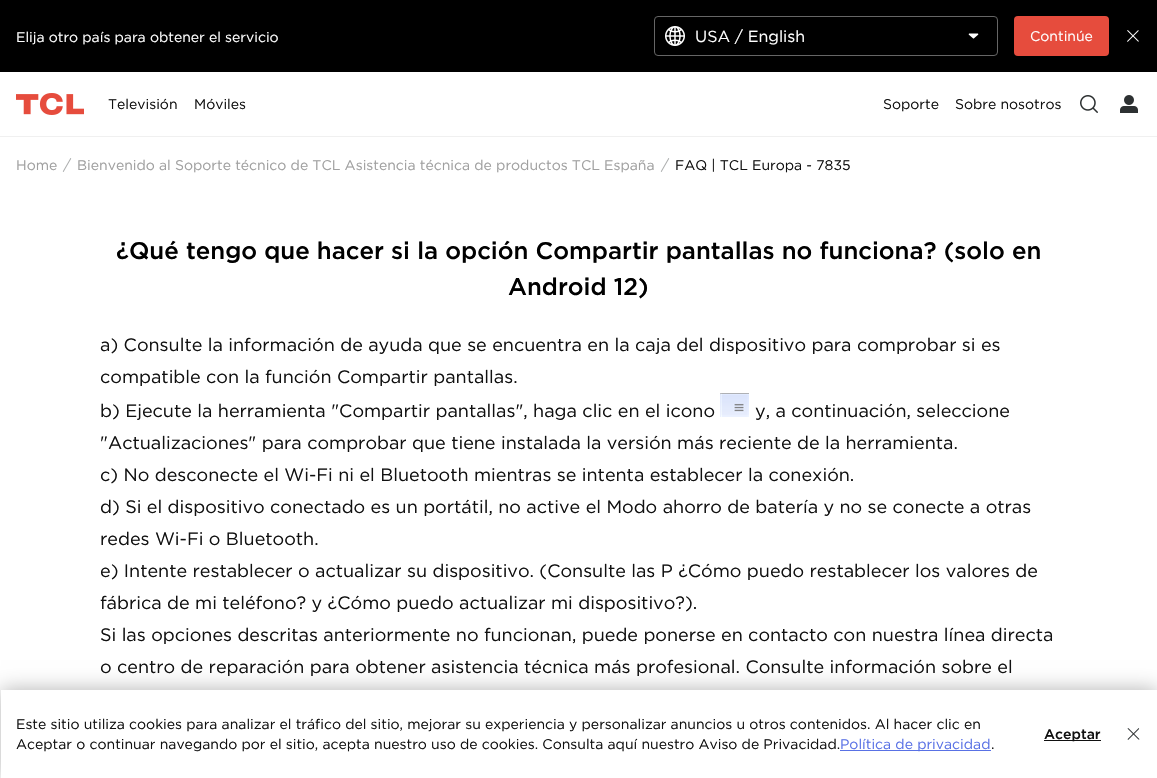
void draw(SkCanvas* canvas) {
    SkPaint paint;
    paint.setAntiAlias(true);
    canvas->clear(0xFFFFFFFF);
    paint.setColor(0xFF000000);
    canvas->drawRect(SkRect::MakeXYWH(0, 0, 1157, 72), paint);
    SkFont font1(fontMgr->matchFamilyStyle("Gotham", SkFontStyle::Normal()), 14);
    font1.setSubpixel(true);
    paint.setColor(0xFFFFFFFF);
    canvas->drawString("Elija otro país para obtener el servicio", 16, 42, font1, paint);
    paint.setStyle(SkPaint::kStroke_Style);
    paint.setStrokeWidth(1);
    paint.setColor(0xFF666666);
    canvas->drawRoundRect(SkRect::MakeXYWH(654.5f, 16.5f, 343, 39), 3.5f, 3.5f, paint);
    canvas->drawImageRect(SkImages::DeferredFromEncodedData(SkData::MakeFromFileName("img1.png")), SkRect::MakeXYWH(665, 26, 20, 20), SkSamplingOptions());
    SkFont font2(fontMgr->matchFamilyStyle("Gotham", SkFontStyle::Normal()), 16);
    font2.setSubpixel(true);
    paint.setStyle(SkPaint::kFill_Style);
    paint.setColor(0xFFFFFFFF);
    canvas->drawString("USA / English", 695, 42, font2, paint);
    canvas->drawImageRect(SkImages::DeferredFromEncodedData(SkData::MakeFromFileName("img2.png")), SkRect::MakeXYWH(968, 33, 11, 6), SkSamplingOptions());
    paint.setColor(0xFFE64C3D);
    canvas->drawRoundRect(SkRect::MakeXYWH(1014, 16, 95, 40), 4, 4, paint);
    paint.setColor(0xFFFFFFFF);
    canvas->drawString("Continúe", 1030, 41, font1, paint);
    canvas->drawImageRect(SkImages::DeferredFromEncodedData(SkData::MakeFromFileName("img3.png")), SkRect::MakeXYWH(1127, 30, 12, 12), SkSamplingOptions());
    paint.setColor(0xFFF0F0F0);
    canvas->drawRect(SkRect::MakeXYWH(0, 136, 1157, 1), paint);
    canvas->drawImageRect(SkImages::DeferredFromEncodedData(SkData::MakeFromFileName("img4.png")), SkRect::MakeXYWH(16, 93, 68, 22), SkSamplingOptions());
    paint.setColor(0xFF111111);
    canvas->drawString("Televisión", 108, 109, font1, paint);
    canvas->drawString("Móviles", 194, 109, font1, paint);
    canvas->drawString("Soporte", 883, 109, font1, paint);
    canvas->drawString("Sobre nosotros", 955, 109, font1, paint);
    canvas->drawImageRect(SkImages::DeferredFromEncodedData(SkData::MakeFromFileName("img5.png")), SkRect::MakeXYWH(1080, 95, 18, 18), SkSamplingOptions());
    canvas->drawImageRect(SkImages::DeferredFromEncodedData(SkData::MakeFromFileName("img6.png")), SkRect::MakeXYWH(1120, 95, 18, 18), SkSamplingOptions());
    paint.setColor(0xFFA0A0A0);
    canvas->drawString("Home", 16, 170, font1, paint);
    canvas->drawImageRect(SkImages::DeferredFromEncodedData(SkData::MakeFromFileName("img7.png")), SkRect::MakeXYWH(62, 158, 10, 14), SkSamplingOptions());
    canvas->drawString("Bienvenido al Soporte técnico de TCL Asistencia técnica de productos TCL España", 77, 170, font1, paint);
    canvas->drawImageRect(SkImages::DeferredFromEncodedData(SkData::MakeFromFileName("img7.png")), SkRect::MakeXYWH(660, 158, 10, 14), SkSamplingOptions());
    paint.setColor(0xFF111111);
    canvas->drawString("FAQ | TCL Europa - 7835", 675, 170, font1, paint);
    SkFont font3(fontMgr->matchFamilyStyle("Gotham", SkFontStyle(500, SkFontStyle::kNormal_Width, SkFontStyle::kUpright_Slant)), 24);
    font3.setSubpixel(true);
    paint.setColor(0xFF000000);
    canvas->drawString("¿Qué tengo que hacer si la opción Compartir pantallas no funciona? (solo en", 116, 259, font3, paint);
    canvas->drawString("Android 12)", 508, 295, font3, paint);
    SkFont font4(fontMgr->matchFamilyStyle("Gotham", SkFontStyle::Normal()), 18);
    font4.setSubpixel(true);
    paint.setColor(0xFF111111);
    canvas->drawString("a) Consulte la información de ayuda que se encuentra en la caja del dispositivo para comprobar si es", 100, 351, font4, paint);
    canvas->drawString("compatible con la función Compartir pantallas.", 100, 383, font4, paint);
    canvas->drawString("b) Ejecute la herramienta \"Compartir pantallas\", haga clic en el icono", 100, 417, font4, paint);
    canvas->drawImageRect(SkImages::DeferredFromEncodedData(SkData::MakeFromFileName("img8.png")), SkRect::MakeXYWH(720, 393, 29, 24), SkSamplingOptions());
    canvas->drawString("y, a continuación, seleccione", 755, 417, font4, paint);
    canvas->drawString("\"Actualizaciones\" para comprobar que tiene instalada la versión más reciente de la herramienta.", 100, 449, font4, paint);
    canvas->drawString("c) No desconecte el Wi-Fi ni el Bluetooth mientras se intenta establecer la conexión.", 100, 481, font4, paint);
    canvas->drawString("d) Si el dispositivo conectado es un portátil, no active el Modo ahorro de batería y no se conecte a otras", 100, 513, font4, paint);
    canvas->drawString("redes Wi-Fi o Bluetooth.", 100, 545, font4, paint);
    canvas->drawString("e) Intente restablecer o actualizar su dispositivo. (Consulte las P ¿Cómo puedo restablecer los valores de", 100, 577, font4, paint);
    canvas->drawString("fábrica de mi teléfono? y ¿Cómo puedo actualizar mi dispositivo?).", 100, 609, font4, paint);
    canvas->drawString("Si las opciones descritas anteriormente no funcionan, puede ponerse en contacto con nuestra línea directa", 100, 641, font4, paint);
    canvas->drawString("o centro de reparación para obtener asistencia técnica más profesional. Consulte información sobre el", 100, 673, font4, paint);
    paint.setColor(0x4D000000);
    paint.setMaskFilter(SkMaskFilter::MakeBlur(kNormal_SkBlurStyle, 10));
    canvas->drawRect(SkRect::MakeXYWH(1, 690, 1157, 88), paint);
    paint.setMaskFilter(nullptr);
    paint.setColor(0xFFFFFFFF);
    canvas->drawRect(SkRect::MakeXYWH(1, 690, 1156, 88), paint);
    paint.setColor(0xFF111111);
    canvas->drawString("Este sitio utiliza cookies para analizar el tráfico del sitio, mejorar su experiencia y personalizar anuncios u otros contenidos. Al hacer clic en", 16, 729, font1, paint);
    canvas->drawString("Aceptar o continuar navegando por el sitio, acepta nuestro uso de cookies. Consulta aquí nuestro Aviso de Privacidad.", 16, 749, font1, paint);
    paint.setColor(0xFF5971E5);
    canvas->drawRect(SkRect::MakeXYWH(840, 750, 151, 1), paint);
    canvas->drawString("Política de privacidad", 840, 749, font1, paint);
    paint.setColor(0xFF111111);
    canvas->drawString(".", 991, 749, font1, paint);
    canvas->drawRect(SkRect::MakeXYWH(1044, 740, 57, 1), paint);
    SkFont font5(fontMgr->matchFamilyStyle("Gotham", SkFontStyle(500, SkFontStyle::kNormal_Width, SkFontStyle::kUpright_Slant)), 14);
    font5.setSubpixel(true);
    canvas->drawString("Aceptar", 1044, 739, font5, paint);
    canvas->drawImageRect(SkImages::DeferredFromEncodedData(SkData::MakeFromFileName("img9.png")), SkRect::MakeXYWH(1127, 728, 13, 12), SkSamplingOptions());
}
